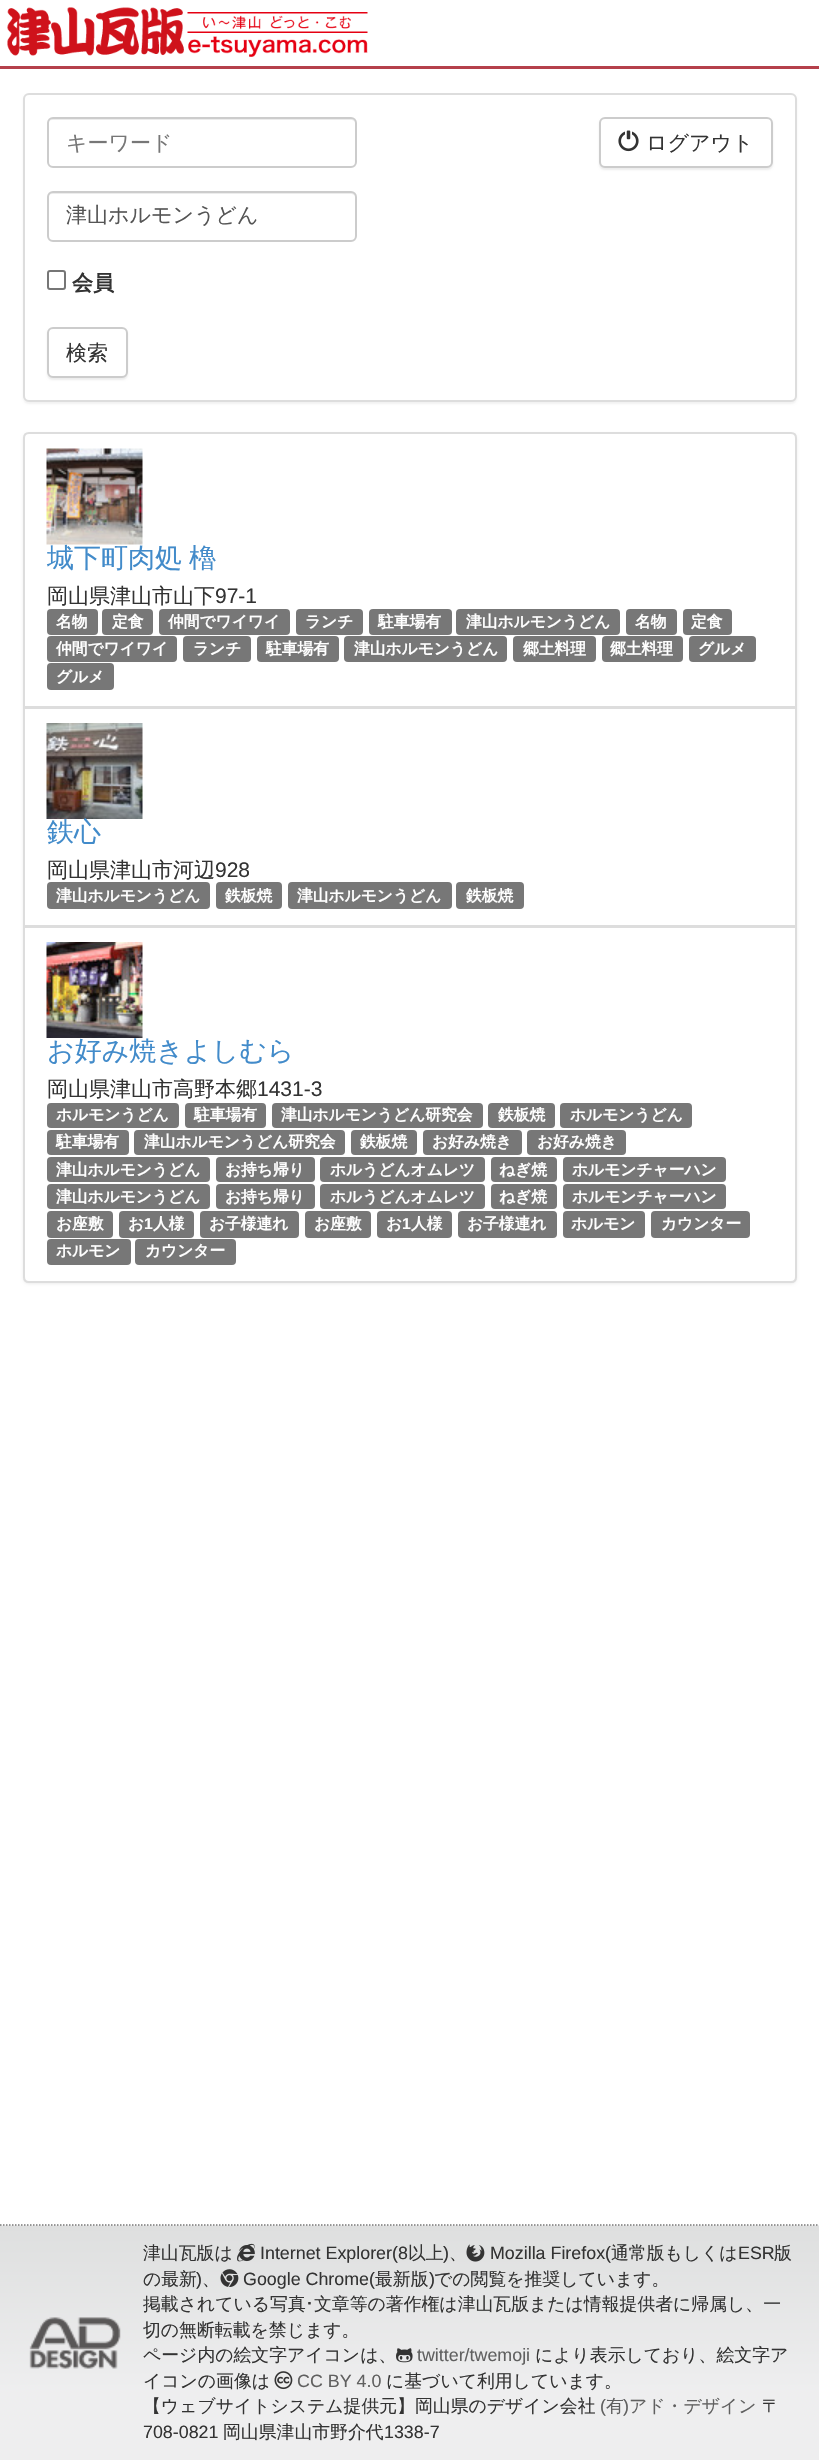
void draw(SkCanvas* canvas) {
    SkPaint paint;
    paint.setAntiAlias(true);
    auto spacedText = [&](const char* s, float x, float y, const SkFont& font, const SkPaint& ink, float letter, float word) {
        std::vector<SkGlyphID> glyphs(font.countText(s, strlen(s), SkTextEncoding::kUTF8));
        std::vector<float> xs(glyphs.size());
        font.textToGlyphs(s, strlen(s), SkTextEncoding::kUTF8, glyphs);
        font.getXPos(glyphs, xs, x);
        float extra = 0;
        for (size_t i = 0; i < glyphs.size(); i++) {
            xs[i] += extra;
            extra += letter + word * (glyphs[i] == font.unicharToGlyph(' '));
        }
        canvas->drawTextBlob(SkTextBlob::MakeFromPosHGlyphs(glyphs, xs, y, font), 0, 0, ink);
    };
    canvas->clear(0xFFFFFFFF);
    paint.setColor(0xFFB5404B);
    canvas->drawRect(SkRect::MakeXYWH(0, 66, 819, 3), paint);
    canvas->drawImageRect(SkImages::DeferredFromEncodedData(SkData::MakeFromFileName("img1.png")), SkRect::MakeXYWH(7, 7, 361, 50), SkSamplingOptions());
    paint.setColor(0x0D000000);
    paint.setMaskFilter(SkMaskFilter::MakeBlur(kNormal_SkBlurStyle, 1));
    canvas->drawRoundRect(SkRect::MakeXYWH(23, 95, 774, 309), 6, 6, paint);
    paint.setMaskFilter(nullptr);
    paint.setColor(0xFFFFFFFF);
    canvas->drawRoundRect(SkRect::MakeXYWH(24, 94, 772, 307), 5, 5, paint);
    paint.setStyle(SkPaint::kStroke_Style);
    paint.setStrokeWidth(2);
    paint.setColor(0xFFDDDDDD);
    canvas->drawRoundRect(SkRect::MakeXYWH(24, 94, 772, 307), 5, 5, paint);
    paint.setStyle(SkPaint::kFill_Style);
    paint.setColor(0xFFECECEC);
    canvas->drawPath(SkPathBuilder().moveTo(52, 120).lineTo(351, 120).cubicTo(353, 120, 356, 122, 356, 124).cubicTo(356, 121, 354, 119, 351, 119).lineTo(53, 119).cubicTo(50, 119, 48, 121, 48, 124).cubicTo(48, 122, 50, 120, 52, 120).close().detach(), paint);
    paint.setStyle(SkPaint::kStroke_Style);
    paint.setColor(0xFFCCCCCC);
    canvas->drawRoundRect(SkRect::MakeXYWH(48, 118, 308, 49), 5, 5, paint);
    SkFont font1(fontMgr->matchFamilyStyle("WenQuanYi Zen Hei", SkFontStyle(500, SkFontStyle::kNormal_Width, SkFontStyle::kUpright_Slant)), 21);
    font1.setSubpixel(true);
    paint.setStyle(SkPaint::kFill_Style);
    paint.setColor(0xFF777777);
    canvas->drawString("キーワード", 66, 150, font1, paint);
    paint.setColor(0xFFECECEC);
    canvas->drawPath(SkPathBuilder().moveTo(52, 194).lineTo(351, 194).cubicTo(353, 194, 356, 196, 356, 198).cubicTo(356, 195, 354, 192, 351, 192).lineTo(53, 192).cubicTo(50, 192, 48, 195, 48, 198).cubicTo(48, 196, 50, 194, 52, 194).close().detach(), paint);
    paint.setStyle(SkPaint::kStroke_Style);
    paint.setColor(0xFFCCCCCC);
    canvas->drawRoundRect(SkRect::MakeXYWH(48, 192, 308, 49), 5, 5, paint);
    paint.setStyle(SkPaint::kFill_Style);
    paint.setColor(0xFF555555);
    canvas->drawString("津山ホルモンうどん", 66, 222, font1, paint);
    paint.setStyle(SkPaint::kStroke_Style);
    paint.setColor(0xFF767676);
    canvas->drawRoundRect(SkRect::MakeXYWH(48, 271, 17, 18), 2, 2, paint);
    SkFont font2(fontMgr->matchFamilyStyle("WenQuanYi Zen Hei", SkFontStyle::Bold()), 21);
    font2.setSubpixel(true);
    paint.setStyle(SkPaint::kFill_Style);
    paint.setColor(0xFF333333);
    canvas->drawString("会員", 72, 290, font2, paint);
    paint.setColor(0x12000000);
    paint.setMaskFilter(SkMaskFilter::MakeBlur(kNormal_SkBlurStyle, 1));
    canvas->drawRoundRect(SkRect::MakeXYWH(47, 329, 81, 51), 6, 6, paint);
    paint.setMaskFilter(nullptr);
    paint.setColor(0xFFFFFFFF);
    canvas->drawRoundRect(SkRect::MakeXYWH(48, 328, 79, 49), 5, 5, paint);
    paint.setStyle(SkPaint::kStroke_Style);
    paint.setColor(0xFFCCCCCC);
    canvas->drawRoundRect(SkRect::MakeXYWH(48, 328, 79, 49), 5, 5, paint);
    paint.setStyle(SkPaint::kFill_Style);
    paint.setColor(0xFF333333);
    canvas->drawString("検索", 66, 360, font1, paint);
    paint.setColor(0x12000000);
    paint.setMaskFilter(SkMaskFilter::MakeBlur(kNormal_SkBlurStyle, 1));
    canvas->drawRoundRect(SkRect::MakeXYWH(599, 119, 174, 51), 6, 6, paint);
    paint.setMaskFilter(nullptr);
    paint.setColor(0xFFFFFFFF);
    canvas->drawRoundRect(SkRect::MakeXYWH(600, 118, 172, 49), 5, 5, paint);
    paint.setStyle(SkPaint::kStroke_Style);
    paint.setColor(0xFFCCCCCC);
    canvas->drawRoundRect(SkRect::MakeXYWH(600, 118, 172, 49), 5, 5, paint);
    canvas->drawImageRect(SkImages::DeferredFromEncodedData(SkData::MakeFromFileName("img2.png")), SkRect::MakeXYWH(618, 130, 21, 22), SkSamplingOptions());
    paint.setStyle(SkPaint::kFill_Style);
    paint.setColor(0xFF333333);
    canvas->drawString("ログアウト", 646, 150, font1, paint);
    paint.setColor(0x12000000);
    paint.setMaskFilter(SkMaskFilter::MakeBlur(kNormal_SkBlurStyle, 1.5f));
    canvas->drawRoundRect(SkRect::MakeXYWH(23, 434, 774, 850), 6, 6, paint);
    paint.setMaskFilter(nullptr);
    paint.setColor(0xFFFFFFFF);
    canvas->drawPath(SkPathBuilder().moveTo(29, 433).lineTo(791, 433).cubicTo(794, 433, 796, 435, 796, 438).lineTo(796, 707).lineTo(24, 707).lineTo(24, 438).cubicTo(24, 435, 26, 433, 29, 433).close().detach(), paint);
    paint.setStyle(SkPaint::kStroke_Style);
    paint.setColor(0xFFDDDDDD);
    canvas->drawPath(SkPathBuilder().moveTo(29, 433).lineTo(791, 433).cubicTo(794, 433, 796, 435, 796, 438).lineTo(796, 707).lineTo(24, 707).lineTo(24, 438).cubicTo(24, 435, 26, 433, 29, 433).close().detach(), paint);
    canvas->drawImageRect(SkImages::DeferredFromEncodedData(SkData::MakeFromFileName("img3.png")), SkRect::MakeXYWH(46, 448, 97, 97), SkSamplingOptions());
    SkFont font3(fontMgr->matchFamilyStyle("WenQuanYi Zen Hei", SkFontStyle(500, SkFontStyle::kNormal_Width, SkFontStyle::kUpright_Slant)), 27);
    font3.setSubpixel(true);
    paint.setStyle(SkPaint::kFill_Style);
    paint.setColor(0xFF428BCA);
    spacedText("城下町肉処 櫓", 47, 567, font3, paint, 0, -1);
    paint.setColor(0xFF333333);
    canvas->drawString("岡山県津山市山下", 47, 603, font1, paint);
    SkFont font4(fontMgr->matchFamilyStyle("Liberation Sans", SkFontStyle::Normal()), 21);
    font4.setSubpixel(true);
    canvas->drawString("97-1", 215, 603, font4, paint);
    paint.setColor(0xFF777777);
    canvas->drawRoundRect(SkRect::MakeXYWH(47, 609, 51, 26), 4, 4, paint);
    SkFont font5(fontMgr->matchFamilyStyle("WenQuanYi Zen Hei", SkFontStyle::Bold()), 15.75f);
    font5.setSubpixel(true);
    paint.setColor(0xFFFFFFFF);
    canvas->drawString("名物", 56, 627, font5, paint);
    paint.setColor(0xFF777777);
    canvas->drawRoundRect(SkRect::MakeXYWH(102, 609, 51, 26), 4, 4, paint);
    paint.setColor(0xFFFFFFFF);
    canvas->drawString("定食", 112, 627, font5, paint);
    paint.setColor(0xFF777777);
    canvas->drawRoundRect(SkRect::MakeXYWH(159, 609, 131, 26), 4, 4, paint);
    paint.setColor(0xFFFFFFFF);
    canvas->drawString("仲間でワイワイ", 168, 627, font5, paint);
    paint.setColor(0xFF777777);
    canvas->drawRoundRect(SkRect::MakeXYWH(296, 609, 67, 26), 4, 4, paint);
    paint.setColor(0xFFFFFFFF);
    canvas->drawString("ランチ", 305, 627, font5, paint);
    paint.setColor(0xFF777777);
    canvas->drawRoundRect(SkRect::MakeXYWH(369, 609, 83, 26), 4, 4, paint);
    paint.setColor(0xFFFFFFFF);
    canvas->drawString("駐車場有", 378, 627, font5, paint);
    paint.setColor(0xFF777777);
    canvas->drawRoundRect(SkRect::MakeXYWH(456, 609, 164, 26), 4, 4, paint);
    paint.setColor(0xFFFFFFFF);
    canvas->drawString("津山ホルモンうどん", 466, 627, font5, paint);
    paint.setColor(0xFF777777);
    canvas->drawRoundRect(SkRect::MakeXYWH(626, 609, 51, 26), 4, 4, paint);
    paint.setColor(0xFFFFFFFF);
    canvas->drawString("名物", 635, 627, font5, paint);
    paint.setColor(0xFF777777);
    canvas->drawRoundRect(SkRect::MakeXYWH(683, 609, 49, 26), 4, 4, paint);
    paint.setColor(0xFFFFFFFF);
    canvas->drawString("定食", 691, 627, font5, paint);
    paint.setColor(0xFF777777);
    canvas->drawRoundRect(SkRect::MakeXYWH(47, 636, 130, 26), 4, 4, paint);
    paint.setColor(0xFFFFFFFF);
    canvas->drawString("仲間でワイワイ", 56, 654, font5, paint);
    paint.setColor(0xFF777777);
    canvas->drawRoundRect(SkRect::MakeXYWH(183, 636, 68, 26), 4, 4, paint);
    paint.setColor(0xFFFFFFFF);
    canvas->drawString("ランチ", 193, 654, font5, paint);
    paint.setColor(0xFF777777);
    canvas->drawRoundRect(SkRect::MakeXYWH(257, 636, 82, 26), 4, 4, paint);
    paint.setColor(0xFFFFFFFF);
    canvas->drawString("駐車場有", 266, 654, font5, paint);
    paint.setColor(0xFF777777);
    canvas->drawRoundRect(SkRect::MakeXYWH(344, 636, 163, 26), 4, 4, paint);
    paint.setColor(0xFFFFFFFF);
    canvas->drawString("津山ホルモンうどん", 354, 654, font5, paint);
    paint.setColor(0xFF777777);
    canvas->drawRoundRect(SkRect::MakeXYWH(513, 636, 83, 26), 4, 4, paint);
    paint.setColor(0xFFFFFFFF);
    canvas->drawString("郷土料理", 523, 654, font5, paint);
    paint.setColor(0xFF777777);
    canvas->drawRoundRect(SkRect::MakeXYWH(602, 636, 81, 26), 4, 4, paint);
    paint.setColor(0xFFFFFFFF);
    canvas->drawString("郷土料理", 610, 654, font5, paint);
    paint.setColor(0xFF777777);
    canvas->drawRoundRect(SkRect::MakeXYWH(689, 636, 67, 26), 4, 4, paint);
    paint.setColor(0xFFFFFFFF);
    canvas->drawString("グルメ", 698, 654, font5, paint);
    paint.setColor(0xFF777777);
    canvas->drawRoundRect(SkRect::MakeXYWH(47, 663, 67, 27), 4, 4, paint);
    paint.setColor(0xFFFFFFFF);
    canvas->drawString("グルメ", 56, 682, font5, paint);
    canvas->drawRect(SkRect::MakeXYWH(24, 708, 772, 218), paint);
    paint.setStyle(SkPaint::kStroke_Style);
    paint.setColor(0xFFDDDDDD);
    canvas->drawRect(SkRect::MakeXYWH(24, 708, 772, 218), paint);
    canvas->drawImageRect(SkImages::DeferredFromEncodedData(SkData::MakeFromFileName("img4.png")), SkRect::MakeXYWH(46, 723, 97, 96), SkSamplingOptions());
    paint.setStyle(SkPaint::kFill_Style);
    paint.setColor(0xFF428BCA);
    canvas->drawString("鉄心", 47, 841, font3, paint);
    paint.setColor(0xFF333333);
    canvas->drawString("岡山県津山市河辺", 47, 877, font1, paint);
    canvas->drawString("928", 215, 877, font4, paint);
    paint.setColor(0xFF777777);
    canvas->drawRoundRect(SkRect::MakeXYWH(47, 882, 163, 27), 4, 4, paint);
    paint.setColor(0xFFFFFFFF);
    canvas->drawString("津山ホルモンうどん", 56, 901, font5, paint);
    paint.setColor(0xFF777777);
    canvas->drawRoundRect(SkRect::MakeXYWH(216, 882, 66, 27), 4, 4, paint);
    paint.setColor(0xFFFFFFFF);
    canvas->drawString("鉄板焼", 225, 901, font5, paint);
    paint.setColor(0xFF777777);
    canvas->drawRoundRect(SkRect::MakeXYWH(288, 882, 164, 27), 4, 4, paint);
    paint.setColor(0xFFFFFFFF);
    canvas->drawString("津山ホルモンうどん", 297, 901, font5, paint);
    paint.setColor(0xFF777777);
    canvas->drawRoundRect(SkRect::MakeXYWH(456, 882, 68, 27), 4, 4, paint);
    paint.setColor(0xFFFFFFFF);
    canvas->drawString("鉄板焼", 466, 901, font5, paint);
    canvas->drawPath(SkPathBuilder().moveTo(24, 927).lineTo(796, 927).lineTo(796, 1277).cubicTo(796, 1280, 794, 1282, 791, 1282).lineTo(29, 1282).cubicTo(26, 1282, 24, 1280, 24, 1277).close().detach(), paint);
    paint.setStyle(SkPaint::kStroke_Style);
    paint.setColor(0xFFDDDDDD);
    canvas->drawPath(SkPathBuilder().moveTo(24, 927).lineTo(796, 927).lineTo(796, 1277).cubicTo(796, 1280, 794, 1282, 791, 1282).lineTo(29, 1282).cubicTo(26, 1282, 24, 1280, 24, 1277).close().detach(), paint);
    canvas->drawImageRect(SkImages::DeferredFromEncodedData(SkData::MakeFromFileName("img5.png")), SkRect::MakeXYWH(46, 942, 97, 96), SkSamplingOptions());
    paint.setStyle(SkPaint::kFill_Style);
    paint.setColor(0xFF428BCA);
    canvas->drawString("お好み焼きよしむら", 47, 1060, font3, paint);
    paint.setColor(0xFF333333);
    canvas->drawString("岡山県津山市高野本郷", 47, 1096, font1, paint);
    canvas->drawString("1431-3", 257, 1096, font4, paint);
    paint.setColor(0xFF777777);
    canvas->drawRoundRect(SkRect::MakeXYWH(47, 1103, 132, 25), 4, 4, paint);
    paint.setColor(0xFFFFFFFF);
    canvas->drawString("ホルモンうどん", 56, 1120, font5, paint);
    paint.setColor(0xFF777777);
    canvas->drawRoundRect(SkRect::MakeXYWH(185, 1103, 81, 25), 4, 4, paint);
    paint.setColor(0xFFFFFFFF);
    canvas->drawString("駐車場有", 194, 1120, font5, paint);
    paint.setColor(0xFF777777);
    canvas->drawRoundRect(SkRect::MakeXYWH(272, 1103, 211, 25), 4, 4, paint);
    paint.setColor(0xFFFFFFFF);
    canvas->drawString("津山ホルモンうどん研究会", 281, 1120, font5, paint);
    paint.setColor(0xFF777777);
    canvas->drawRoundRect(SkRect::MakeXYWH(488, 1103, 67, 25), 4, 4, paint);
    paint.setColor(0xFFFFFFFF);
    canvas->drawString("鉄板焼", 498, 1120, font5, paint);
    paint.setColor(0xFF777777);
    canvas->drawRoundRect(SkRect::MakeXYWH(560, 1103, 132, 25), 4, 4, paint);
    paint.setColor(0xFFFFFFFF);
    canvas->drawString("ホルモンうどん", 570, 1120, font5, paint);
    paint.setColor(0xFF777777);
    canvas->drawRoundRect(SkRect::MakeXYWH(47, 1130, 82, 25), 4, 4, paint);
    paint.setColor(0xFFFFFFFF);
    canvas->drawString("駐車場有", 56, 1147, font5, paint);
    paint.setColor(0xFF777777);
    canvas->drawRoundRect(SkRect::MakeXYWH(134, 1130, 211, 25), 4, 4, paint);
    paint.setColor(0xFFFFFFFF);
    canvas->drawString("津山ホルモンうどん研究会", 144, 1147, font5, paint);
    paint.setColor(0xFF777777);
    canvas->drawRoundRect(SkRect::MakeXYWH(351, 1130, 66, 25), 4, 4, paint);
    paint.setColor(0xFFFFFFFF);
    canvas->drawString("鉄板焼", 360, 1147, font5, paint);
    paint.setColor(0xFF777777);
    canvas->drawRoundRect(SkRect::MakeXYWH(423, 1130, 99, 25), 4, 4, paint);
    paint.setColor(0xFFFFFFFF);
    canvas->drawString("お好み焼き", 432, 1147, font5, paint);
    paint.setColor(0xFF777777);
    canvas->drawRoundRect(SkRect::MakeXYWH(527, 1130, 99, 25), 4, 4, paint);
    paint.setColor(0xFFFFFFFF);
    canvas->drawString("お好み焼き", 537, 1147, font5, paint);
    paint.setColor(0xFF777777);
    canvas->drawRoundRect(SkRect::MakeXYWH(47, 1157, 163, 25), 4, 4, paint);
    paint.setColor(0xFFFFFFFF);
    canvas->drawString("津山ホルモンうどん", 56, 1175, font5, paint);
    paint.setColor(0xFF777777);
    canvas->drawRoundRect(SkRect::MakeXYWH(216, 1157, 99, 25), 4, 4, paint);
    paint.setColor(0xFFFFFFFF);
    canvas->drawString("お持ち帰り", 225, 1175, font5, paint);
    paint.setColor(0xFF777777);
    canvas->drawRoundRect(SkRect::MakeXYWH(320, 1157, 165, 25), 4, 4, paint);
    paint.setColor(0xFFFFFFFF);
    canvas->drawString("ホルうどんオムレツ", 330, 1175, font5, paint);
    paint.setColor(0xFF777777);
    canvas->drawRoundRect(SkRect::MakeXYWH(491, 1157, 66, 25), 4, 4, paint);
    paint.setColor(0xFFFFFFFF);
    canvas->drawString("ねぎ焼", 499, 1175, font5, paint);
    paint.setColor(0xFF777777);
    canvas->drawRoundRect(SkRect::MakeXYWH(563, 1157, 163, 25), 4, 4, paint);
    paint.setColor(0xFFFFFFFF);
    canvas->drawString("ホルモンチャーハン", 572, 1175, font5, paint);
    paint.setColor(0xFF777777);
    canvas->drawRoundRect(SkRect::MakeXYWH(47, 1184, 163, 25), 4, 4, paint);
    paint.setColor(0xFFFFFFFF);
    canvas->drawString("津山ホルモンうどん", 56, 1202, font5, paint);
    paint.setColor(0xFF777777);
    canvas->drawRoundRect(SkRect::MakeXYWH(216, 1184, 99, 25), 4, 4, paint);
    paint.setColor(0xFFFFFFFF);
    canvas->drawString("お持ち帰り", 225, 1202, font5, paint);
    paint.setColor(0xFF777777);
    canvas->drawRoundRect(SkRect::MakeXYWH(320, 1184, 165, 25), 4, 4, paint);
    paint.setColor(0xFFFFFFFF);
    canvas->drawString("ホルうどんオムレツ", 330, 1202, font5, paint);
    paint.setColor(0xFF777777);
    canvas->drawRoundRect(SkRect::MakeXYWH(491, 1184, 66, 25), 4, 4, paint);
    paint.setColor(0xFFFFFFFF);
    canvas->drawString("ねぎ焼", 499, 1202, font5, paint);
    paint.setColor(0xFF777777);
    canvas->drawRoundRect(SkRect::MakeXYWH(563, 1184, 163, 25), 4, 4, paint);
    paint.setColor(0xFFFFFFFF);
    canvas->drawString("ホルモンチャーハン", 572, 1202, font5, paint);
    paint.setColor(0xFF777777);
    canvas->drawRoundRect(SkRect::MakeXYWH(47, 1211, 66, 27), 4, 4, paint);
    paint.setColor(0xFFFFFFFF);
    canvas->drawString("お座敷", 56, 1229, font5, paint);
    paint.setColor(0xFF777777);
    canvas->drawRoundRect(SkRect::MakeXYWH(119, 1211, 75, 27), 4, 4, paint);
    paint.setColor(0xFFFFFFFF);
    canvas->drawString("お", 128, 1229, font5, paint);
    SkFont font6(fontMgr->matchFamilyStyle("Liberation Sans", SkFontStyle::Bold()), 15.75f);
    font6.setSubpixel(true);
    canvas->drawString("1", 144, 1229, font6, paint);
    canvas->drawString("人様", 153, 1229, font5, paint);
    paint.setColor(0xFF777777);
    canvas->drawRoundRect(SkRect::MakeXYWH(200, 1211, 99, 27), 4, 4, paint);
    paint.setColor(0xFFFFFFFF);
    canvas->drawString("お子様連れ", 209, 1229, font5, paint);
    paint.setColor(0xFF777777);
    canvas->drawRoundRect(SkRect::MakeXYWH(305, 1211, 66, 27), 4, 4, paint);
    paint.setColor(0xFFFFFFFF);
    canvas->drawString("お座敷", 314, 1229, font5, paint);
    paint.setColor(0xFF777777);
    canvas->drawRoundRect(SkRect::MakeXYWH(377, 1211, 75, 27), 4, 4, paint);
    paint.setColor(0xFFFFFFFF);
    canvas->drawString("お", 386, 1229, font5, paint);
    canvas->drawString("1", 402, 1229, font6, paint);
    canvas->drawString("人様", 411, 1229, font5, paint);
    paint.setColor(0xFF777777);
    canvas->drawRoundRect(SkRect::MakeXYWH(458, 1211, 99, 27), 4, 4, paint);
    paint.setColor(0xFFFFFFFF);
    canvas->drawString("お子様連れ", 467, 1229, font5, paint);
    paint.setColor(0xFF777777);
    canvas->drawRoundRect(SkRect::MakeXYWH(563, 1211, 82, 27), 4, 4, paint);
    paint.setColor(0xFFFFFFFF);
    canvas->drawString("ホルモン", 571, 1229, font5, paint);
    paint.setColor(0xFF777777);
    canvas->drawRoundRect(SkRect::MakeXYWH(651, 1211, 99, 27), 4, 4, paint);
    paint.setColor(0xFFFFFFFF);
    canvas->drawString("カウンター", 661, 1229, font5, paint);
    paint.setColor(0xFF777777);
    canvas->drawRoundRect(SkRect::MakeXYWH(47, 1239, 84, 26), 4, 4, paint);
    paint.setColor(0xFFFFFFFF);
    canvas->drawString("ホルモン", 56, 1256, font5, paint);
    paint.setColor(0xFF777777);
    canvas->drawRoundRect(SkRect::MakeXYWH(135, 1239, 101, 26), 4, 4, paint);
    paint.setColor(0xFFFFFFFF);
    canvas->drawString("カウンター", 145, 1256, font5, paint);
    paint.setColor(0xFFEEEEEE);
    canvas->drawRect(SkRect::MakeXYWH(0, 2225, 819, 1), paint);
    paint.setStyle(SkPaint::kStroke_Style);
    paint.setStrokeWidth(1.5f);
    paint.setColor(0xFF777777);
    paint.setPathEffect(SkDashPathEffect::Make({{1.5f, 1.5f}}, 0));
    canvas->drawPath(SkPathBuilder().moveTo(0, 2225).lineTo(819, 2225).detach(), paint);
    paint.setPathEffect(nullptr);
    paint.setStyle(SkPaint::kFill_Style);
    {
        const SkColor colors[] = {0xFFDEDFDF, 0xFFEEEEEF};
        const float stops[] = {0, 0.7f};
        const SkPoint ends[] = {{410, 2226}, {410, 2460}};
        paint.setShader(SkGradientShader::MakeLinear(ends, colors, stops, 2, SkTileMode::kClamp));
        paint.setAlpha(255);
    }
    canvas->drawRect(SkRect::MakeXYWH(0, 2226, 819, 234), paint);
    canvas->drawImageRect(SkImages::DeferredFromEncodedData(SkData::MakeFromFileName("img6.png")), SkRect::MakeXYWH(29, 2317, 92, 52), SkSamplingOptions());
    SkFont font7(fontMgr->matchFamilyStyle("WenQuanYi Zen Hei", SkFontStyle(500, SkFontStyle::kNormal_Width, SkFontStyle::kUpright_Slant)), 17.85f);
    font7.setSubpixel(true);
    paint.setShader(nullptr);
    paint.setColor(0xFF333333);
    canvas->drawString("津山瓦版は", 143, 2259, font7, paint);
    canvas->drawImageRect(SkImages::DeferredFromEncodedData(SkData::MakeFromFileName("img7.png")), SkRect::MakeXYWH(237, 2243, 18, 19), SkSamplingOptions());
    SkFont font8(fontMgr->matchFamilyStyle("Liberation Sans", SkFontStyle::Normal()), 17.85f);
    font8.setSubpixel(true);
    canvas->drawString("Internet Explorer(8", 260, 2259, font8, paint);
    canvas->drawString("以上", 408, 2259, font7, paint);
    canvas->drawString(")", 443, 2259, font8, paint);
    canvas->drawString("、", 449, 2259, font7, paint);
    canvas->drawImageRect(SkImages::DeferredFromEncodedData(SkData::MakeFromFileName("img8.png")), SkRect::MakeXYWH(466, 2244, 19, 18), SkSamplingOptions());
    canvas->drawString("Mozilla Firefox(", 490, 2259, font8, paint);
    canvas->drawString("通常版もしくは", 611, 2259, font7, paint);
    canvas->drawString("ESR", 738, 2259, font8, paint);
    canvas->drawString("版", 774, 2259, font7, paint);
    canvas->drawString("の最新", 143, 2285, font7, paint);
    canvas->drawString(")", 196, 2285, font8, paint);
    canvas->drawString("、", 202, 2285, font7, paint);
    canvas->drawImageRect(SkImages::DeferredFromEncodedData(SkData::MakeFromFileName("img9.png")), SkRect::MakeXYWH(220, 2269, 19, 18), SkSamplingOptions());
    canvas->drawString("Google Chrome(", 243, 2285, font8, paint);
    canvas->drawString("最新版", 375, 2285, font7, paint);
    canvas->drawString(")", 429, 2285, font8, paint);
    canvas->drawString("での閲覧を推奨しています。", 434, 2285, font7, paint);
    canvas->drawString("掲載されている写真", 143, 2310, font7, paint);
    SkFont font9(fontMgr->matchFamilyStyle("IPAPGothic", SkFontStyle::Normal()), 17.85f);
    font9.setSubpixel(true);
    canvas->drawString("･", 305, 2310, font9, paint);
    canvas->drawString("文章等の著作権は津山瓦版または情報提供者に帰属し、一", 314, 2310, font7, paint);
    canvas->drawString("切の無断転載を禁じます。", 143, 2336, font7, paint);
    canvas->drawString("ページ内の絵文字アイコンは、", 143, 2361, font7, paint);
    canvas->drawImageRect(SkImages::DeferredFromEncodedData(SkData::MakeFromFileName("img10.png")), SkRect::MakeXYWH(396, 2348, 17, 15), SkSamplingOptions());
    paint.setColor(0xFF606060);
    canvas->drawString("twitter/twemoji", 417, 2361, font8, paint);
    paint.setColor(0xFF333333);
    canvas->drawString("により表示しており、絵文字ア", 535, 2361, font7, paint);
    canvas->drawString("イコンの画像は", 143, 2387, font7, paint);
    canvas->drawImageRect(SkImages::DeferredFromEncodedData(SkData::MakeFromFileName("img11.png")), SkRect::MakeXYWH(274, 2371, 19, 19), SkSamplingOptions());
    paint.setColor(0xFF606060);
    canvas->drawString("CC BY 4.0", 297, 2387, font8, paint);
    paint.setColor(0xFF333333);
    canvas->drawString("に基づいて利用しています。", 386, 2387, font7, paint);
    canvas->drawString("【ウェブサイトシステム提供元】岡山県のデザイン会社", 143, 2412, font7, paint);
    paint.setColor(0xFF606060);
    canvas->drawString("(", 600, 2412, font8, paint);
    canvas->drawString("有", 606, 2412, font7, paint);
    canvas->drawString(")", 623, 2412, font8, paint);
    canvas->drawString("アド・デザイン", 629, 2412, font7, paint);
    paint.setColor(0xFF333333);
    canvas->drawString("〒", 762, 2412, font7, paint);
    canvas->drawString("708-0821", 143, 2438, font8, paint);
    canvas->drawString("岡山県津山市野介代", 223, 2438, font7, paint);
    canvas->drawString("1338-7", 384, 2438, font8, paint);
}
